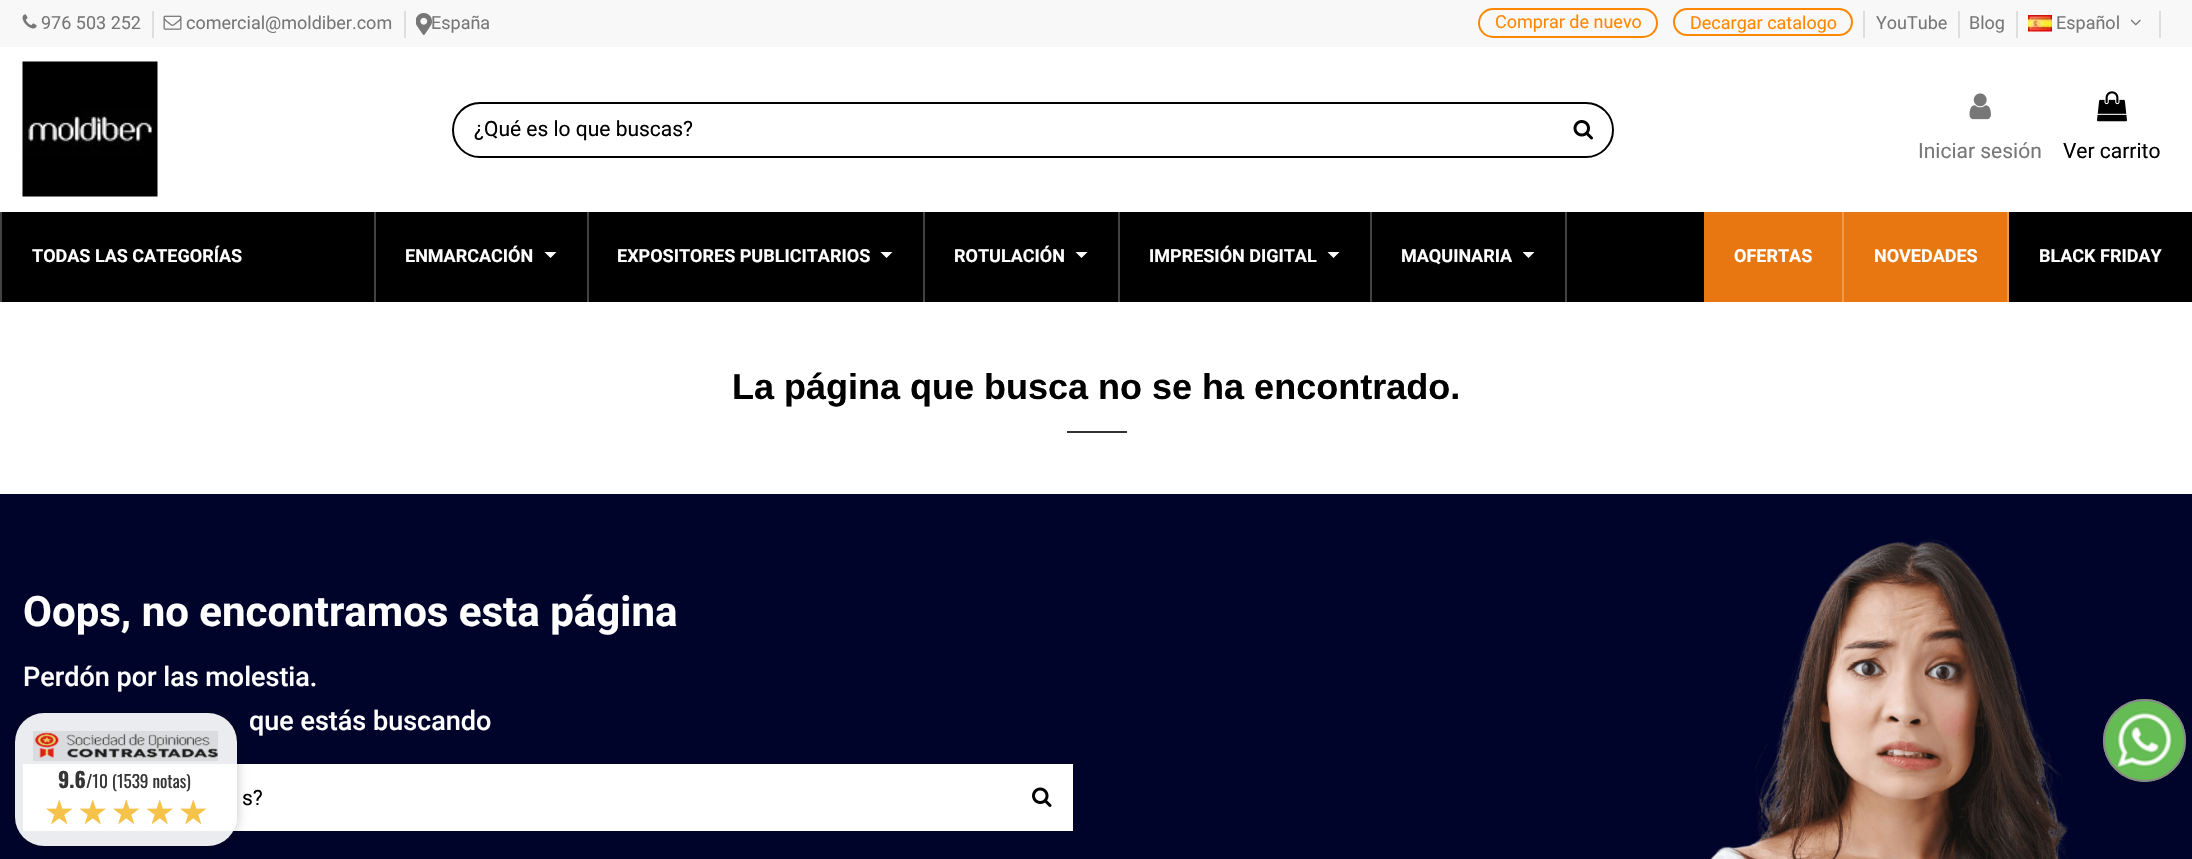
void draw(SkCanvas* canvas) {
    SkPaint paint;
    paint.setAntiAlias(true);
    auto spacedText = [&](const char* s, float x, float y, const SkFont& font, const SkPaint& ink, float letter, float word) {
        std::vector<SkGlyphID> glyphs(font.countText(s, strlen(s), SkTextEncoding::kUTF8));
        std::vector<float> xs(glyphs.size());
        font.textToGlyphs(s, strlen(s), SkTextEncoding::kUTF8, glyphs);
        font.getXPos(glyphs, xs, x);
        float extra = 0;
        for (size_t i = 0; i < glyphs.size(); i++) {
            xs[i] += extra;
            extra += letter + word * (glyphs[i] == font.unicharToGlyph(' '));
        }
        canvas->drawTextBlob(SkTextBlob::MakeFromPosHGlyphs(glyphs, xs, y, font), 0, 0, ink);
    };
    canvas->clear(0xFFFFFFFF);
    paint.setColor(0xFFF8F8F8);
    canvas->drawRect(SkRect::MakeXYWH(0, 0, 2192, 47), paint);
    canvas->drawImageRect(SkImages::DeferredFromEncodedData(SkData::MakeFromFileName("img1.png")), SkRect::MakeXYWH(22, 14, 15, 15), SkSamplingOptions());
    SkFont font1(fontMgr->matchFamilyStyle("Roboto", SkFontStyle::Normal()), 18);
    font1.setSubpixel(true);
    paint.setColor(0xFF777777);
    canvas->drawString("976 503 252", 41, 29, font1, paint);
    paint.setColor(0xFFDEDEDE);
    canvas->drawRect(SkRect::MakeXYWH(152, 11, 2, 27), paint);
    canvas->drawImageRect(SkImages::DeferredFromEncodedData(SkData::MakeFromFileName("img2.png")), SkRect::MakeXYWH(163, 15, 19, 15), SkSamplingOptions());
    paint.setColor(0xFF777777);
    canvas->drawString("comercial@moldiber.com", 186, 29, font1, paint);
    paint.setColor(0xFFDEDEDE);
    canvas->drawRect(SkRect::MakeXYWH(404, 11, 2, 27), paint);
    canvas->drawImageRect(SkImages::DeferredFromEncodedData(SkData::MakeFromFileName("img3.png")), SkRect::MakeXYWH(416, 13, 16, 22), SkSamplingOptions());
    paint.setColor(0xFF777777);
    canvas->drawString("España", 431, 29, font1, paint);
    paint.setStyle(SkPaint::kStroke_Style);
    paint.setStrokeWidth(2);
    paint.setColor(0xFFFF8700);
    canvas->drawRoundRect(SkRect::MakeXYWH(1479, 9, 178, 28), 14, 14, paint);
    paint.setStyle(SkPaint::kFill_Style);
    canvas->drawString("Comprar de nuevo", 1495, 28, font1, paint);
    paint.setStyle(SkPaint::kStroke_Style);
    canvas->drawRoundRect(SkRect::MakeXYWH(1674, 9, 178, 26), 13, 13, paint);
    paint.setStyle(SkPaint::kFill_Style);
    canvas->drawString("Decargar catalogo", 1690, 29, font1, paint);
    paint.setColor(0xFFDEDEDE);
    canvas->drawRect(SkRect::MakeXYWH(1863, 11, 2, 27), paint);
    paint.setColor(0xFF777777);
    canvas->drawString("YouTube", 1876, 29, font1, paint);
    paint.setColor(0xFFDEDEDE);
    canvas->drawRect(SkRect::MakeXYWH(1958, 11, 2, 27), paint);
    paint.setColor(0xFF777777);
    canvas->drawString("Blog", 1969, 29, font1, paint);
    paint.setColor(0xFFDEDEDE);
    canvas->drawRect(SkRect::MakeXYWH(2016, 11, 2, 27), paint);
    canvas->drawImageRect(SkImages::DeferredFromEncodedData(SkData::MakeFromFileName("img4.png")), SkRect::MakeXYWH(2028, 15, 24, 17), SkSamplingOptions());
    paint.setColor(0xFF777777);
    canvas->drawString("Español", 2056, 29, font1, paint);
    canvas->drawImageRect(SkImages::DeferredFromEncodedData(SkData::MakeFromFileName("img5.png")), SkRect::MakeXYWH(2130, 19, 11, 7), SkSamplingOptions());
    paint.setColor(0xFFDEDEDE);
    canvas->drawRect(SkRect::MakeXYWH(2159, 11, 2, 27), paint);
    canvas->drawImageRect(SkImages::DeferredFromEncodedData(SkData::MakeFromFileName("img6.png")), SkRect::MakeXYWH(22, 61, 136, 136), SkSamplingOptions());
    paint.setStyle(SkPaint::kStroke_Style);
    paint.setColor(0xFF000000);
    canvas->drawRoundRect(SkRect::MakeXYWH(453, 103, 1160, 54), 27, 27, paint);
    SkFont font2(fontMgr->matchFamilyStyle("Roboto", SkFontStyle::Normal()), 21);
    font2.setSubpixel(true);
    paint.setStyle(SkPaint::kFill_Style);
    canvas->drawString("¿Qué es lo que buscas?", 474, 136, font2, paint);
    canvas->drawImageRect(SkImages::DeferredFromEncodedData(SkData::MakeFromFileName("img7.png")), SkRect::MakeXYWH(1573, 120, 20, 20), SkSamplingOptions());
    canvas->drawImageRect(SkImages::DeferredFromEncodedData(SkData::MakeFromFileName("img8.png")), SkRect::MakeXYWH(1969, 93, 22, 27), SkSamplingOptions());
    paint.setColor(0xFF777777);
    canvas->drawString("Iniciar sesión", 1918, 158, font2, paint);
    canvas->drawImageRect(SkImages::DeferredFromEncodedData(SkData::MakeFromFileName("img9.png")), SkRect::MakeXYWH(2097, 91, 30, 31), SkSamplingOptions());
    paint.setColor(0xFF000000);
    canvas->drawString("Ver carrito", 2063, 158, font2, paint);
    canvas->drawRect(SkRect::MakeXYWH(2, 212, 2190, 90), paint);
    paint.setColor(0xFF424242);
    canvas->drawRect(SkRect::MakeXYWH(374, 212, 2, 90), paint);
    canvas->drawRect(SkRect::MakeXYWH(0, 212, 2, 90), paint);
    SkFont font3(fontMgr->matchFamilyStyle("Roboto", SkFontStyle::Bold()), 18);
    font3.setSubpixel(true);
    paint.setColor(0xFFFFFFFF);
    canvas->drawString("TODAS LAS CATEGORÍAS", 32, 262, font3, paint);
    paint.setColor(0xFF424242);
    canvas->drawRect(SkRect::MakeXYWH(587, 212, 2, 90), paint);
    paint.setColor(0xFFFFFFFF);
    canvas->drawString("ENMARCACIÓN", 405, 262, font3, paint);
    canvas->drawPath(SkPathBuilder().moveTo(544.5f, 252).lineTo(556.5f, 252).lineTo(550.5f, 258).close().detach(), paint);
    paint.setColor(0xFF424242);
    canvas->drawRect(SkRect::MakeXYWH(923, 212, 2, 90), paint);
    paint.setColor(0xFFFFFFFF);
    canvas->drawString("EXPOSITORES PUBLICITARIOS", 617, 262, font3, paint);
    canvas->drawPath(SkPathBuilder().moveTo(880.5f, 252).lineTo(892.5f, 252).lineTo(886.5f, 258).close().detach(), paint);
    paint.setColor(0xFF424242);
    canvas->drawRect(SkRect::MakeXYWH(1118, 212, 2, 90), paint);
    paint.setColor(0xFFFFFFFF);
    canvas->drawString("ROTULACIÓN", 954, 262, font3, paint);
    canvas->drawPath(SkPathBuilder().moveTo(1075.5f, 252).lineTo(1087.5f, 252).lineTo(1081.5f, 258).close().detach(), paint);
    paint.setColor(0xFF424242);
    canvas->drawRect(SkRect::MakeXYWH(1370, 212, 2, 90), paint);
    paint.setColor(0xFFFFFFFF);
    canvas->drawString("IMPRESIÓN DIGITAL", 1149, 262, font3, paint);
    canvas->drawPath(SkPathBuilder().moveTo(1327.5f, 252).lineTo(1339.5f, 252).lineTo(1333.5f, 258).close().detach(), paint);
    paint.setColor(0xFF424242);
    canvas->drawRect(SkRect::MakeXYWH(1565, 212, 2, 90), paint);
    paint.setColor(0xFFFFFFFF);
    canvas->drawString("MAQUINARIA", 1401, 262, font3, paint);
    canvas->drawPath(SkPathBuilder().moveTo(1522.5f, 252).lineTo(1534.5f, 252).lineTo(1528.5f, 258).close().detach(), paint);
    paint.setColor(0xFFE87711);
    canvas->drawRect(SkRect::MakeXYWH(1704, 212, 138, 90), paint);
    paint.setColor(0xFFEE9A4F);
    canvas->drawRect(SkRect::MakeXYWH(1842, 212, 2, 90), paint);
    paint.setColor(0xFFFFFFFF);
    canvas->drawString("OFERTAS", 1734, 262, font3, paint);
    paint.setColor(0xFFE87711);
    canvas->drawRect(SkRect::MakeXYWH(1844, 212, 163, 90), paint);
    paint.setColor(0xFFEE9A4F);
    canvas->drawRect(SkRect::MakeXYWH(2007, 212, 2, 90), paint);
    paint.setColor(0xFFFFFFFF);
    canvas->drawString("NOVEDADES", 1874, 262, font3, paint);
    canvas->drawString("BLACK FRIDAY", 2039, 262, font3, paint);
    SkFont font4(fontMgr->matchFamilyStyle("Liberation Sans", SkFontStyle::Bold()), 36);
    font4.setSubpixel(true);
    paint.setColor(0xFF000000);
    canvas->drawString("La página que busca no se ha encontrado.", 732, 399, font4, paint);
    paint.setColor(0xFF333333);
    canvas->drawRect(SkRect::MakeXYWH(1067, 431, 60, 2), paint);
    paint.setColor(0xFF00042B);
    canvas->drawRect(SkRect::MakeXYWH(0, 494, 2192, 365), paint);
    SkFont font5(fontMgr->matchFamilyStyle("Roboto", SkFontStyle::Bold()), 42);
    font5.setSubpixel(true);
    paint.setColor(0xFFFFFFFF);
    canvas->drawString("Oops, no encontramos esta página", 23, 626, font5, paint);
    SkFont font6(fontMgr->matchFamilyStyle("Roboto", SkFontStyle(500, SkFontStyle::kNormal_Width, SkFontStyle::kUpright_Slant)), 27);
    font6.setSubpixel(true);
    canvas->drawString("Perdón por las molestia.", 23, 686, font6, paint);
    canvas->drawString("que estás buscando", 249, 730, font6, paint);
    canvas->drawRect(SkRect::MakeXYWH(23, 764, 1050, 67), paint);
    paint.setColor(0xFF000000);
    canvas->drawString("s?", 242, 805, font2, paint);
    canvas->drawImageRect(SkImages::DeferredFromEncodedData(SkData::MakeFromFileName("img10.png")), SkRect::MakeXYWH(1032, 787, 20, 20), SkSamplingOptions());
    canvas->drawImageRect(SkImages::DeferredFromEncodedData(SkData::MakeFromFileName("img11.png")), SkRect::MakeXYWH(1710, 537, 359, 322), SkSamplingOptions());
    paint.setColor(0xFF65BC54);
    canvas->drawCircle(2144.5f, 740.5f, 41.5f, paint);
    canvas->drawImageRect(SkImages::DeferredFromEncodedData(SkData::MakeFromFileName("img12.png")), SkRect::MakeXYWH(2110, 706, 68, 68), SkSamplingOptions());
    paint.setStyle(SkPaint::kStroke_Style);
    paint.setColor(0xFF888888);
    canvas->drawCircle(2144.5f, 740.5f, 40.5f, paint);
    canvas->save();
    canvas->clipPath(SkPathBuilder(SkPathFillType::kEvenOdd).moveTo(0, 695).lineTo(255, 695).lineTo(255, 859).lineTo(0, 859).close().moveTo(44, 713).lineTo(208, 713).cubicTo(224, 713, 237, 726, 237, 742).lineTo(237, 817).cubicTo(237, 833, 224, 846, 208, 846).lineTo(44, 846).cubicTo(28, 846, 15, 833, 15, 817).lineTo(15, 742).cubicTo(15, 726, 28, 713, 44, 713).close().detach(), true);
    paint.setStyle(SkPaint::kFill_Style);
    paint.setColor(0x3B000000);
    paint.setMaskFilter(SkMaskFilter::MakeBlur(kNormal_SkBlurStyle, 5.5f));
    canvas->drawRoundRect(SkRect::MakeXYWH(15, 713, 222, 133), 29, 29, paint);
    paint.setMaskFilter(nullptr);
    canvas->restore();
    paint.setColor(0xEBFFFFFF);
    canvas->drawRoundRect(SkRect::MakeXYWH(15, 713, 222, 133), 29, 29, paint);
    paint.setColor(0xFFDADBDE);
    canvas->drawRect(SkRect::MakeXYWH(33, 731, 185, 30), paint);
    canvas->drawImageRect(SkImages::DeferredFromEncodedData(SkData::MakeFromFileName("img13.png")), SkRect::MakeXYWH(34, 732, 184, 27), SkSamplingOptions());
    SkFont font7(fontMgr->matchFamilyStyle("Oswald", SkFontStyle::Bold()), 21);
    font7.setSubpixel(true);
    paint.setColor(0xFF343434);
    canvas->drawString("9.6", 58, 788, font7, paint);
    SkFont font8(fontMgr->matchFamilyStyle("Oswald", SkFontStyle::Normal()), 17.25f);
    font8.setSubpixel(true);
    canvas->drawString("/10 (1539 notas)", 86, 788, font8, paint);
    SkFont font9(fontMgr->matchFamilyStyle("DejaVu Sans", SkFontStyle::Normal()), 34);
    font9.setSubpixel(true);
    paint.setColor(0xFFF5C24A);
    spacedText("★★★★★", 44, 824, font9, paint, 3, 0);
}
